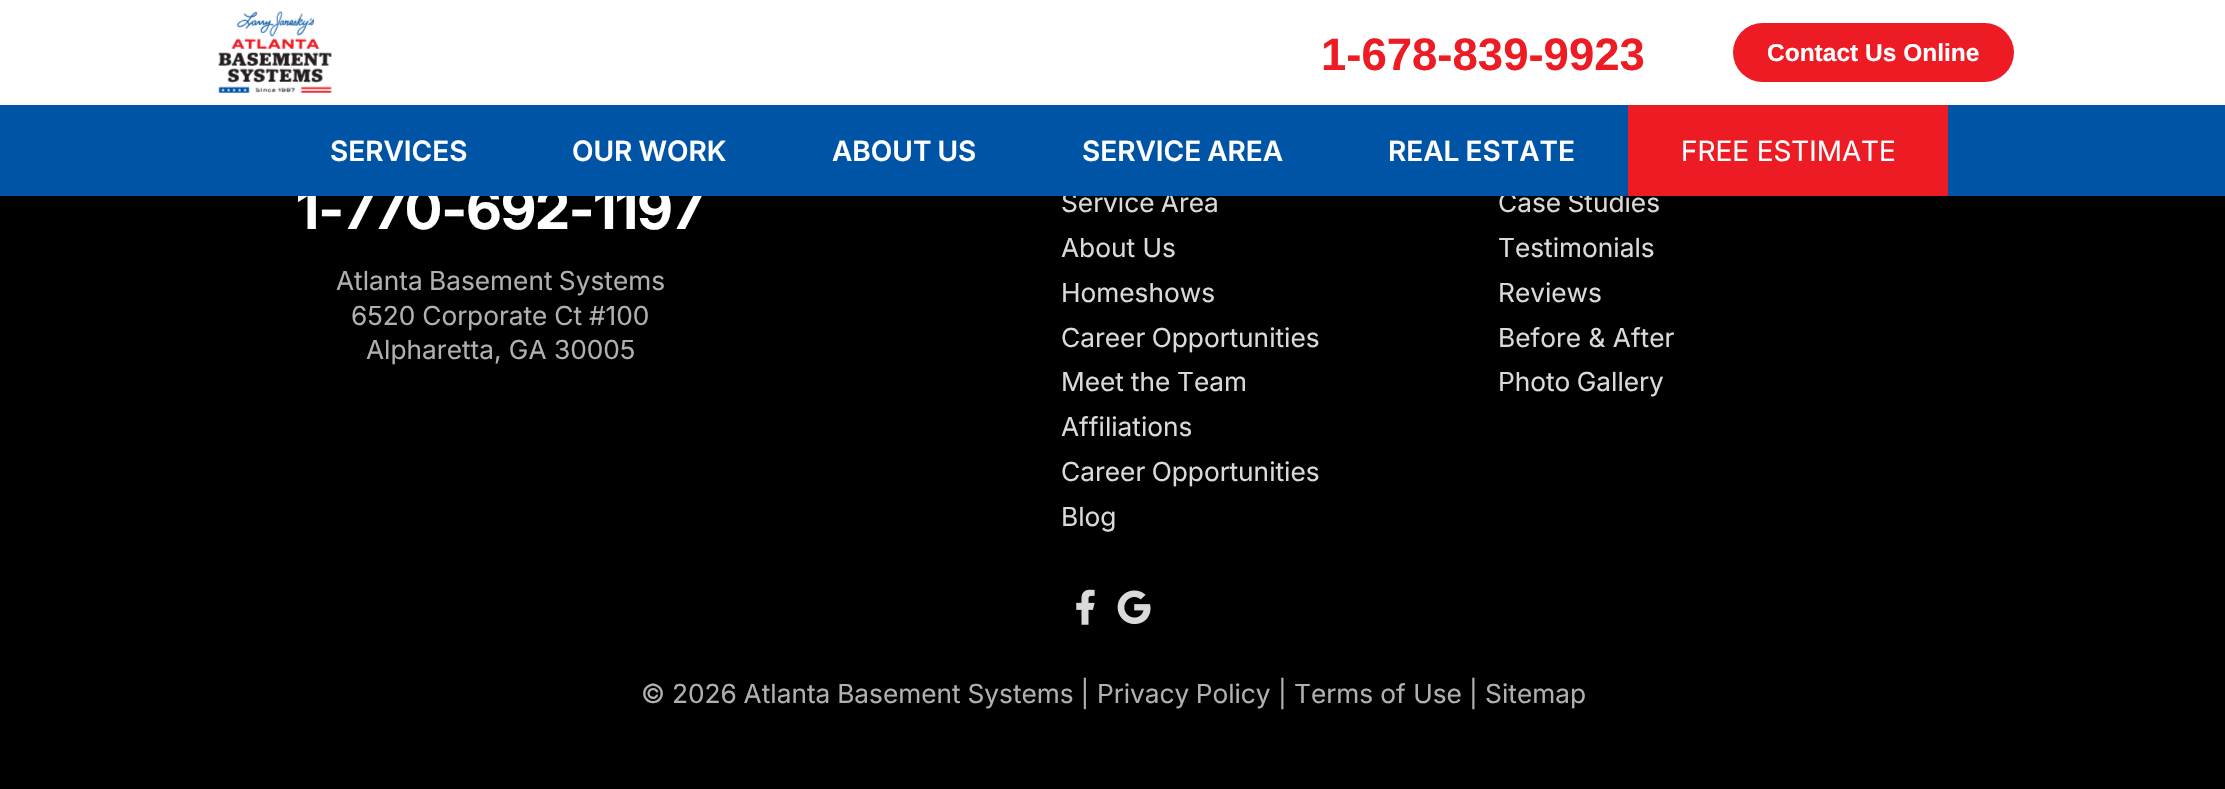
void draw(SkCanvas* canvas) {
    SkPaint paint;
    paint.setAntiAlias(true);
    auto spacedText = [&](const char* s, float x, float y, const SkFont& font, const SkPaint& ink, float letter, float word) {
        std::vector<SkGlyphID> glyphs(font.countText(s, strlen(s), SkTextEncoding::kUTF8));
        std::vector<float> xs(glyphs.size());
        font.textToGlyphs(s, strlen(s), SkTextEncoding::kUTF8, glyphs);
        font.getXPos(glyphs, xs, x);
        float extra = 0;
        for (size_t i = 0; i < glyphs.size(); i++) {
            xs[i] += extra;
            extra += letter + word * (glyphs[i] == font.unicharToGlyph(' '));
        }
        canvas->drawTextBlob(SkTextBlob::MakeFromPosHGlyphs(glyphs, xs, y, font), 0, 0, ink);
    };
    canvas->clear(0xFF000000);
    paint.setColor(0x59000000);
    paint.setMaskFilter(SkMaskFilter::MakeBlur(kNormal_SkBlurStyle, 9));
    canvas->drawRect(SkRect::MakeXYWH(0, 9, 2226, 196), paint);
    paint.setMaskFilter(nullptr);
    SkFont font1(fontMgr->matchFamilyStyle("Inter", SkFontStyle::Bold()), 56);
    font1.setSubpixel(true);
    paint.setColor(0xFFFFFFFF);
    canvas->drawString("1-770-692-1197", 297, 229, font1, paint);
    SkFont font2(fontMgr->matchFamilyStyle("Inter", SkFontStyle::Normal()), 26.25f);
    font2.setSubpixel(true);
    paint.setColor(0xFFDCD9D9);
    spacedText("Service Area", 1061, 212, font2, paint, 0, -1);
    spacedText("Case Studies", 1498, 212, font2, paint, 0, -1);
    paint.setColor(0xFF0054A6);
    canvas->drawRect(SkRect::MakeXYWH(0, 105, 2225, 91), paint);
    paint.setColor(0xFFFFFFFF);
    canvas->drawRect(SkRect::MakeXYWH(0, 0, 2225, 105), paint);
    canvas->drawImageRect(SkImages::DeferredFromEncodedData(SkData::MakeFromFileName("img1.png")), SkRect::MakeXYWH(218, 11, 114, 82), SkSamplingOptions());
    SkFont font3(fontMgr->matchFamilyStyle("Liberation Sans", SkFontStyle::Bold()), 45.5f);
    font3.setSubpixel(true);
    paint.setColor(0xFFED1C24);
    canvas->drawString("1-678-839-9923", 1321, 70, font3, paint);
    canvas->drawRoundRect(SkRect::MakeXYWH(1733, 23, 281, 59), 29.5f, 29.5f, paint);
    SkFont font4(fontMgr->matchFamilyStyle("Liberation Sans", SkFontStyle::Bold()), 24.5f);
    font4.setSubpixel(true);
    paint.setColor(0xFFFFFFFF);
    canvas->drawString("Contact Us Online", 1767, 61, font4, paint);
    SkFont font5(fontMgr->matchFamilyStyle("Inter", SkFontStyle(600, SkFontStyle::kNormal_Width, SkFontStyle::kUpright_Slant)), 28);
    font5.setSubpixel(true);
    canvas->drawString("SERVICES", 330, 161, font5, paint);
    spacedText("OUR WORK", 572, 161, font5, paint, 0, -1);
    spacedText("ABOUT US", 832, 161, font5, paint, 0, -1);
    spacedText("SERVICE AREA", 1082, 161, font5, paint, 0, -1);
    spacedText("REAL ESTATE", 1388, 161, font5, paint, 0, -1);
    paint.setColor(0xFFED1C24);
    canvas->drawRect(SkRect::MakeXYWH(1628, 105, 320, 91), paint);
    SkFont font6(fontMgr->matchFamilyStyle("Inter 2", SkFontStyle::Normal()), 28);
    font6.setSubpixel(true);
    paint.setColor(0xFFFFFFFF);
    canvas->drawString("FREE ESTIMATE", 1681, 161, font6, paint);
    paint.setColor(0xFFB0B0B0);
    spacedText("Atlanta Basement Systems", 336, 290, font2, paint, 0, -1);
    spacedText("6520 Corporate Ct #100", 351, 325, font2, paint, 0, -0.5f);
    canvas->drawString("Alpharetta, GA 30005", 366, 359, font2, paint);
    paint.setColor(0xFFDCD9D9);
    canvas->drawString("About Us", 1061, 257, font2, paint);
    canvas->drawString("Homeshows", 1061, 302, font2, paint);
    spacedText("Career Opportunities", 1061, 347, font2, paint, 0, -1);
    spacedText("Meet the Team", 1061, 391, font2, paint, 0, -0.5f);
    canvas->drawString("Affiliations", 1061, 436, font2, paint);
    spacedText("Career Opportunities", 1061, 481, font2, paint, 0, -1);
    canvas->drawString("Blog", 1061, 526, font2, paint);
    canvas->drawString("Testimonials", 1498, 257, font2, paint);
    canvas->drawString("Reviews", 1498, 302, font2, paint);
    canvas->drawString("Before & After", 1498, 347, font2, paint);
    spacedText("Photo Gallery", 1498, 391, font2, paint, 0, -1);
    canvas->drawImageRect(SkImages::DeferredFromEncodedData(SkData::MakeFromFileName("img2.png")), SkRect::MakeXYWH(1076, 589, 19, 36), SkSamplingOptions());
    canvas->drawImageRect(SkImages::DeferredFromEncodedData(SkData::MakeFromFileName("img3.png")), SkRect::MakeXYWH(1117, 590, 34, 35), SkSamplingOptions());
    paint.setColor(0xFFB0B0B0);
    spacedText("© 2026 Atlanta Basement Systems |", 641, 703, font2, paint, 0, -0.5f);
    spacedText("Privacy Policy", 1097, 703, font2, paint, 0, -1);
    canvas->drawString("|", 1278, 703, font2, paint);
    canvas->drawString("Terms of Use", 1294, 703, font2, paint);
    canvas->drawString("| Sitemap", 1469, 703, font2, paint);
}
